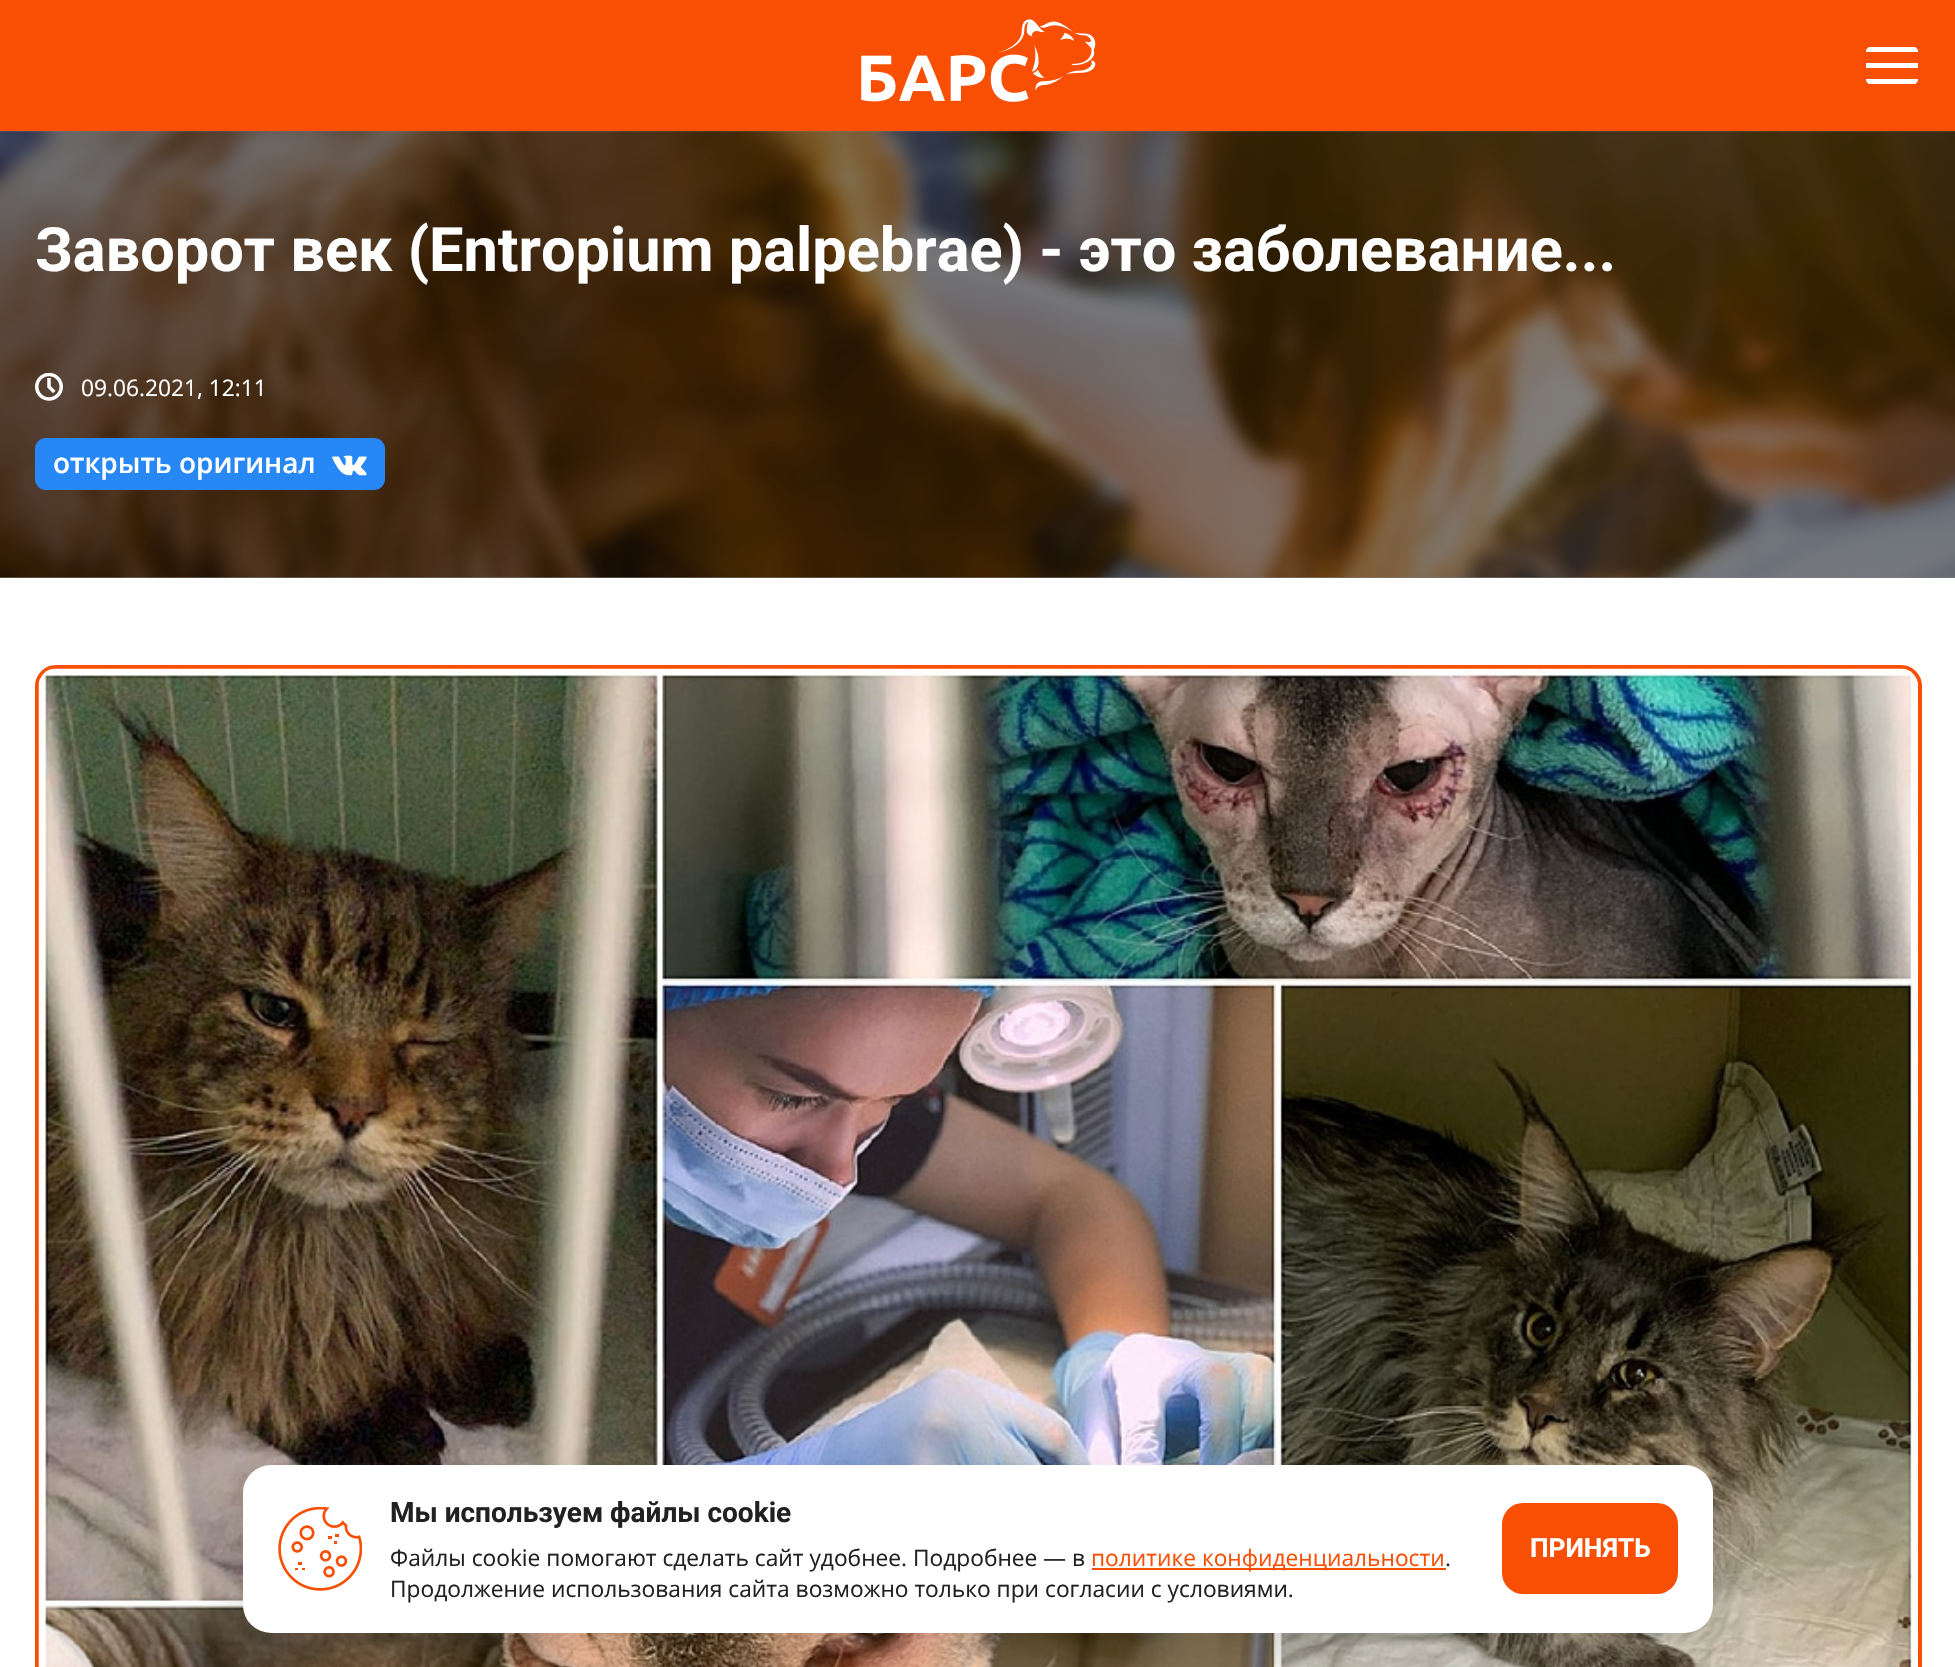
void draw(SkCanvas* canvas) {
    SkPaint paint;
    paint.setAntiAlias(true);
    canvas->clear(0xFFFFFFFF);
    paint.setColor(0xFF808080);
    canvas->drawRect(SkRect::MakeXYWH(0, 131, 1955, 447), paint);
    paint.setColor(0xFFF84F05);
    canvas->drawRect(SkRect::MakeXYWH(0, 0, 1955, 131), paint);
    canvas->drawImageRect(SkImages::DeferredFromEncodedData(SkData::MakeFromFileName("img1.png")), SkRect::MakeXYWH(861, 19, 235, 83), SkSamplingOptions());
    paint.setColor(0xFFFFFFFF);
    canvas->drawPath(SkPathBuilder().moveTo(1870, 47).lineTo(1914, 47).cubicTo(1916, 47, 1918, 49, 1918, 51).lineTo(1918, 52).lineTo(1866, 52).lineTo(1866, 51).cubicTo(1866, 49, 1868, 47, 1870, 47).close().detach(), paint);
    canvas->drawRect(SkRect::MakeXYWH(1866, 63, 52, 5), paint);
    canvas->drawPath(SkPathBuilder().moveTo(1866, 79).lineTo(1918, 79).lineTo(1918, 80).cubicTo(1918, 82, 1916, 84, 1914, 84).lineTo(1870, 84).cubicTo(1868, 84, 1866, 82, 1866, 80).close().detach(), paint);
    canvas->drawImageRect(SkImages::DeferredFromEncodedData(SkData::MakeFromFileName("img2.png")), SkRect::MakeXYWH(0, 131, 1955, 447), SkSamplingOptions());
    SkFont font1(fontMgr->matchFamilyStyle("Roboto", SkFontStyle::Bold()), 61.25f);
    font1.setSubpixel(true);
    canvas->drawString("Заворот век (Entropium palpebrae) - это заболевание...", 35, 271, font1, paint);
    canvas->drawImageRect(SkImages::DeferredFromEncodedData(SkData::MakeFromFileName("img3.png")), SkRect::MakeXYWH(35, 373, 28, 28), SkSamplingOptions());
    SkFont font2(fontMgr->matchFamilyStyle("Open Sans", SkFontStyle::Normal()), 22.75f);
    font2.setSubpixel(true);
    canvas->drawString("09.06.2021, 12:11", 81, 396, font2, paint);
    paint.setColor(0xFF2787F5);
    canvas->drawRoundRect(SkRect::MakeXYWH(35, 438, 350, 52), 11, 11, paint);
    SkFont font3(fontMgr->matchFamilyStyle("Open Sans", SkFontStyle(600, SkFontStyle::kNormal_Width, SkFontStyle::kUpright_Slant)), 28);
    font3.setSubpixel(true);
    paint.setColor(0xFFFFFFFF);
    canvas->drawString("открыть оригинал", 53, 473, font3, paint);
    canvas->drawImageRect(SkImages::DeferredFromEncodedData(SkData::MakeFromFileName("img4.png")), SkRect::MakeXYWH(332, 455, 35, 21), SkSamplingOptions());
    paint.setStyle(SkPaint::kStroke_Style);
    paint.setStrokeWidth(4);
    paint.setColor(0xFFF84F05);
    canvas->drawRoundRect(SkRect::MakeXYWH(37, 667, 1883, 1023), 19, 19, paint);
    canvas->drawImageRect(SkImages::DeferredFromEncodedData(SkData::MakeFromFileName("img5.png")), SkRect::MakeXYWH(38, 668, 1880, 999), SkSamplingOptions());
    paint.setStyle(SkPaint::kFill_Style);
    paint.setColor(0x2E212121);
    paint.setMaskFilter(SkMaskFilter::MakeBlur(kNormal_SkBlurStyle, 28));
    canvas->drawRoundRect(SkRect::MakeXYWH(243, 1493, 1470, 168), 28, 28, paint);
    paint.setMaskFilter(nullptr);
    paint.setColor(0xFFFFFFFF);
    canvas->drawRoundRect(SkRect::MakeXYWH(243, 1465, 1470, 168), 28, 28, paint);
    canvas->drawImageRect(SkImages::DeferredFromEncodedData(SkData::MakeFromFileName("img6.png")), SkRect::MakeXYWH(278, 1507, 84, 84), SkSamplingOptions());
    SkFont font4(fontMgr->matchFamilyStyle("Roboto", SkFontStyle::Bold()), 28);
    font4.setSubpixel(true);
    paint.setColor(0xFF212121);
    canvas->drawString("Мы используем файлы cookie", 390, 1522, font4, paint);
    canvas->drawString("Файлы cookie помогают сделать сайт удобнее. Подробнее — в", 390, 1566, font2, paint);
    paint.setColor(0xFFF84F05);
    canvas->drawRect(SkRect::MakeXYWH(1092, 1568, 354, 2), paint);
    canvas->drawString("политике конфиденциальности", 1091, 1566, font2, paint);
    paint.setColor(0xFF212121);
    canvas->drawString(".", 1445, 1566, font2, paint);
    canvas->drawString("Продолжение использования сайта возможно только при согласии с условиями.", 390, 1597, font2, paint);
    paint.setColor(0xFFF84F05);
    canvas->drawRoundRect(SkRect::MakeXYWH(1502, 1503, 176, 91), 21, 21, paint);
    SkFont font5(fontMgr->matchFamilyStyle("Roboto", SkFontStyle::Bold()), 26.25f);
    font5.setSubpixel(true);
    paint.setColor(0xFFFFFFFF);
    canvas->drawString("ПРИНЯТЬ", 1530, 1557, font5, paint);
}
